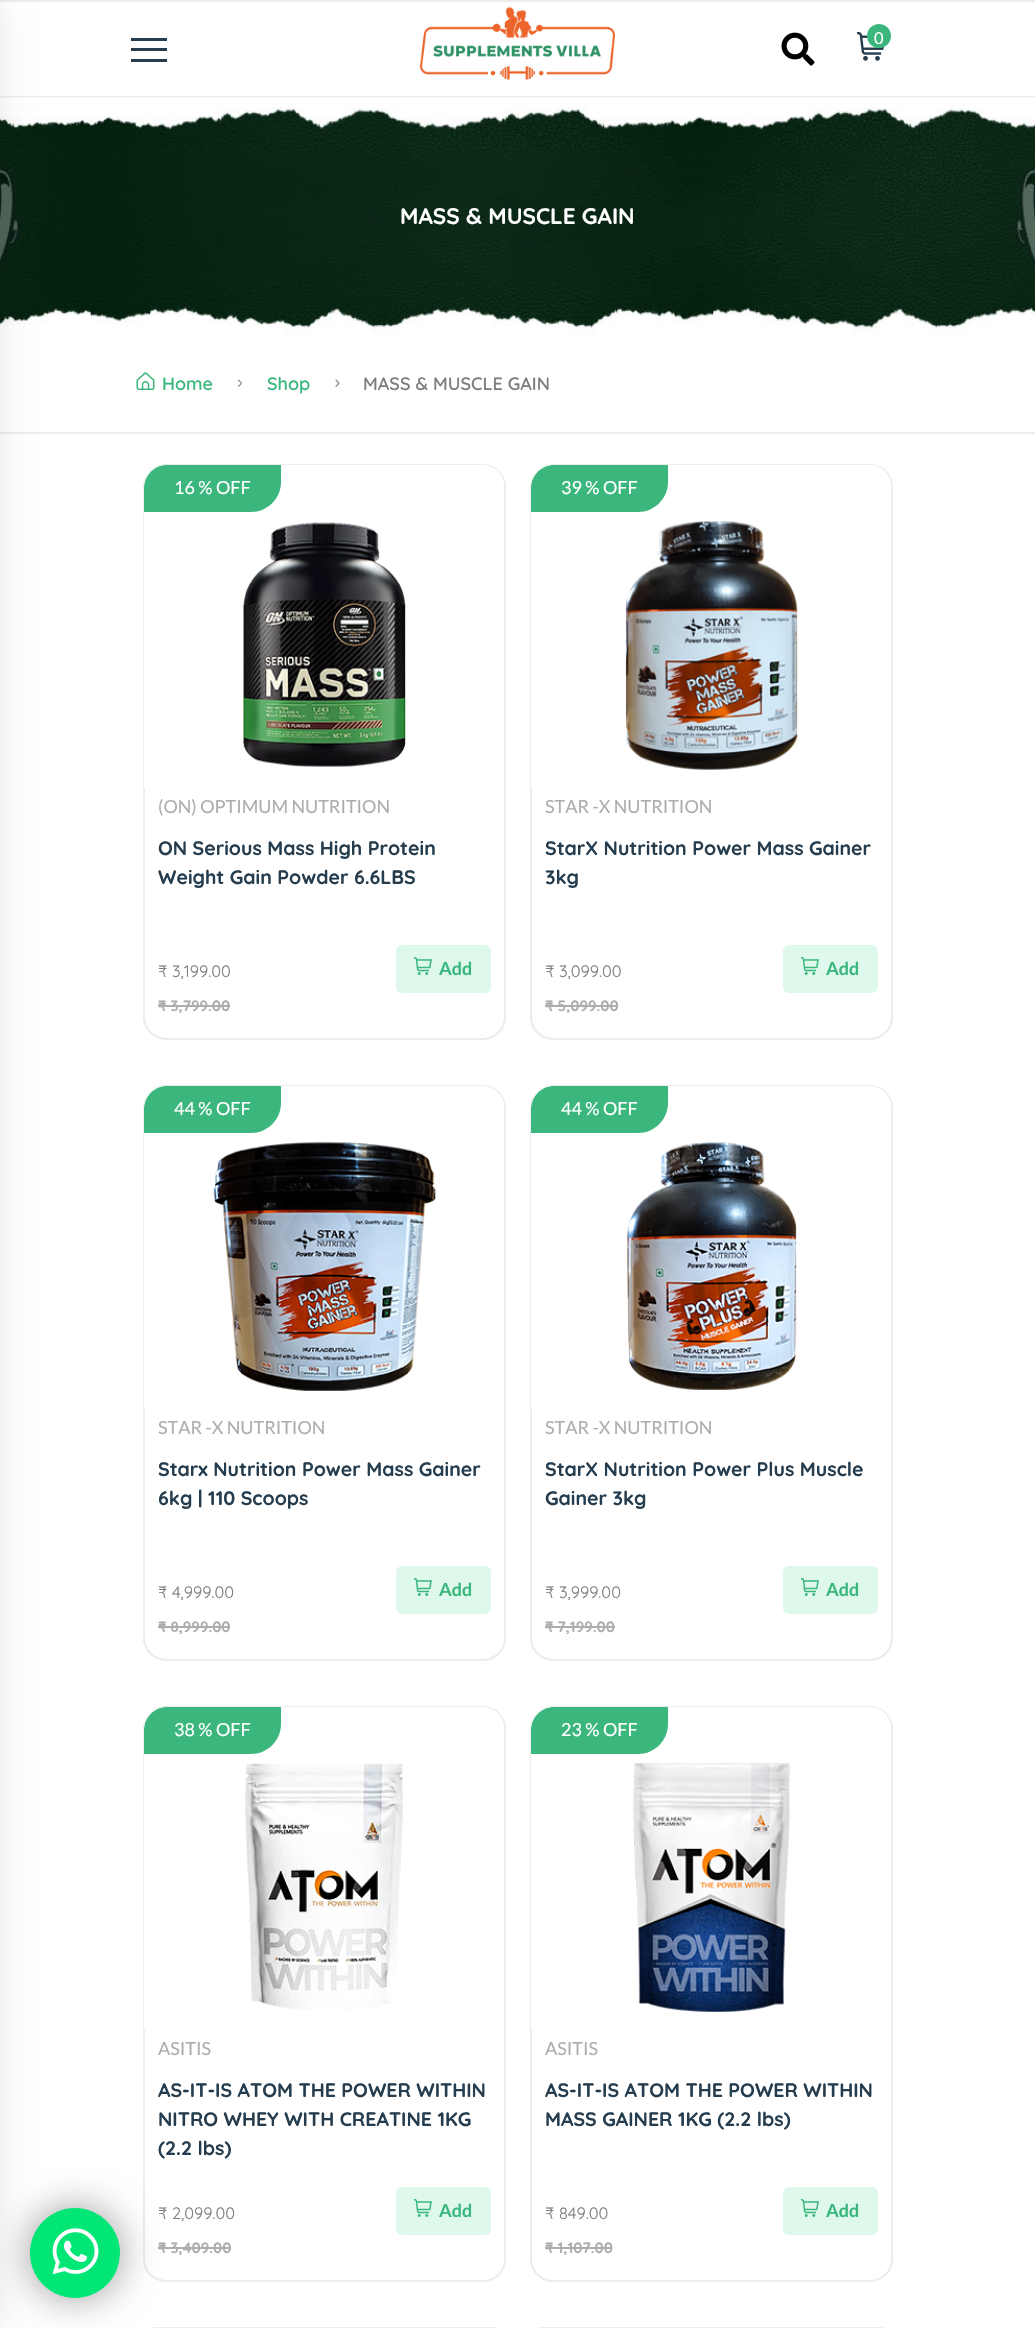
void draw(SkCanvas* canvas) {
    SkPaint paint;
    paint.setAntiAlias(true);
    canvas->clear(0xFFFFFFFF);
    paint.setColor(0xFFECECEC);
    canvas->drawRect(SkRect::MakeXYWH(0, 0, 1035, 2), paint);
    canvas->drawRect(SkRect::MakeXYWH(0, 96, 1035, 2), paint);
    canvas->drawImageRect(SkImages::DeferredFromEncodedData(SkData::MakeFromFileName("img5.png")), SkRect::MakeXYWH(0, 97, 1035, 238), SkSamplingOptions());
    canvas->drawRect(SkRect::MakeXYWH(0, 432, 1035, 2), paint);
    paint.setColor(0x14000000);
    paint.setMaskFilter(SkMaskFilter::MakeBlur(kNormal_SkBlurStyle, 15));
    canvas->drawRect(SkRect::MakeXYWH(-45, 0, 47, 2328), paint);
    paint.setMaskFilter(nullptr);
    paint.setColor(0xFF253D4E);
    canvas->drawRect(SkRect::MakeXYWH(131, 38, 36, 3), paint);
    canvas->drawRect(SkRect::MakeXYWH(131, 48, 36, 3), paint);
    canvas->drawRect(SkRect::MakeXYWH(131, 59, 36, 3), paint);
    canvas->drawImageRect(SkImages::DeferredFromEncodedData(SkData::MakeFromFileName("img1.png")), SkRect::MakeXYWH(420, 7, 195, 73), SkSamplingOptions());
    canvas->drawImageRect(SkImages::DeferredFromEncodedData(SkData::MakeFromFileName("img2.png")), SkRect::MakeXYWH(781, 32, 34, 34), SkSamplingOptions());
    canvas->drawImageRect(SkImages::DeferredFromEncodedData(SkData::MakeFromFileName("img3.png")), SkRect::MakeXYWH(857, 32, 27, 29), SkSamplingOptions());
    paint.setColor(0xFF3BB77E);
    canvas->drawCircle(879, 36, 12, paint);
    SkFont font1(fontMgr->matchFamilyStyle("Lato", SkFontStyle::Normal()), 16.5f);
    font1.setSubpixel(true);
    paint.setColor(0xFFFFFFFF);
    canvas->drawString("0", 874, 44, font1, paint);
    paint.setStyle(SkPaint::kStroke_Style);
    paint.setStrokeWidth(2);
    paint.setColor(0xFFECECEC);
    canvas->drawRoundRect(SkRect::MakeXYWH(144, 1707, 361, 574), 22, 22, paint);
    paint.setStyle(SkPaint::kFill_Style);
    paint.setColor(0xFFADADAD);
    canvas->drawRect(SkRect::MakeXYWH(158, 2247, 73, 2), paint);
    paint.setStyle(SkPaint::kStroke_Style);
    paint.setColor(0xFFECECEC);
    canvas->drawRoundRect(SkRect::MakeXYWH(144, 2328, 361, 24), 22, 22, paint);
    paint.setStyle(SkPaint::kFill_Style);
    paint.setColor(0x66000000);
    paint.setMaskFilter(SkMaskFilter::MakeBlur(kNormal_SkBlurStyle, 19));
    canvas->drawRoundRect(SkRect::MakeXYWH(30, 2208, 90, 90), 45, 45, paint);
    paint.setMaskFilter(nullptr);
    paint.setColor(0xFF01E675);
    canvas->drawCircle(75, 2253, 45, paint);
    canvas->drawImageRect(SkImages::DeferredFromEncodedData(SkData::MakeFromFileName("img4.png")), SkRect::MakeXYWH(52, 2228, 47, 47), SkSamplingOptions());
    SkFont font2(fontMgr->matchFamilyStyle("Quicksand", SkFontStyle::Bold()), 22.5f);
    font2.setSubpixel(true);
    paint.setColor(0xFFFFFFFF);
    canvas->drawString("MASS & MUSCLE GAIN", 400, 224, font2, paint);
    canvas->drawImageRect(SkImages::DeferredFromEncodedData(SkData::MakeFromFileName("img6.png")), SkRect::MakeXYWH(136, 372, 19, 18), SkSamplingOptions());
    SkFont font3(fontMgr->matchFamilyStyle("Quicksand", SkFontStyle(600, SkFontStyle::kNormal_Width, SkFontStyle::kUpright_Slant)), 18);
    font3.setSubpixel(true);
    paint.setColor(0xFF3BB77E);
    canvas->drawString("Home", 162, 390, font3, paint);
    canvas->drawImageRect(SkImages::DeferredFromEncodedData(SkData::MakeFromFileName("img7.png")), SkRect::MakeXYWH(237, 379, 5, 8), SkSamplingOptions());
    canvas->drawString("Shop", 267, 390, font3, paint);
    canvas->drawImageRect(SkImages::DeferredFromEncodedData(SkData::MakeFromFileName("img8.png")), SkRect::MakeXYWH(335, 379, 5, 8), SkSamplingOptions());
    paint.setColor(0xFF7E7E7E);
    canvas->drawString("MASS & MUSCLE GAIN", 363, 390, font3, paint);
    paint.setStyle(SkPaint::kStroke_Style);
    paint.setColor(0xFFECECEC);
    canvas->drawRoundRect(SkRect::MakeXYWH(144, 465, 361, 574), 22, 22, paint);
    paint.setStyle(SkPaint::kFill_Style);
    paint.setColor(0xFFFFFFFF);
    canvas->drawPath(SkPathBuilder().moveTo(165, 465).lineTo(483, 465).cubicTo(494.5f, 465, 504, 474.5f, 504, 486).lineTo(504, 788).lineTo(144, 788).lineTo(144, 486).cubicTo(144, 474.5f, 153.5f, 465, 165, 465).close().detach(), paint);
    canvas->save();
    canvas->clipPath(SkPathBuilder().moveTo(165, 465).lineTo(483, 465).cubicTo(494.5f, 465, 504, 474.5f, 504, 486).lineTo(504, 1017).cubicTo(504, 1028.5f, 494.5f, 1038, 483, 1038).lineTo(165, 1038).cubicTo(153.5f, 1038, 144, 1028.5f, 144, 1017).lineTo(144, 486).cubicTo(144, 474.5f, 153.5f, 465, 165, 465).close().detach(), true);
    paint.setColor(0xFF3BB77E);
    canvas->drawPath(SkPathBuilder().moveTo(167, 465).lineTo(281, 465).lineTo(281, 482).cubicTo(281, 498.5f, 267.5f, 512, 251, 512).lineTo(144, 512).lineTo(144, 488).cubicTo(144, 475.5f, 154.5f, 465, 167, 465).close().detach(), paint);
    canvas->restore();
    SkFont font4(fontMgr->matchFamilyStyle("Lato", SkFontStyle::Normal()), 18);
    font4.setSubpixel(true);
    paint.setColor(0xFFFFFFFF);
    canvas->drawString("16 % OFF", 174, 494, font4, paint);
    canvas->drawImageRect(SkImages::DeferredFromEncodedData(SkData::MakeFromFileName("img9.png")), SkRect::MakeXYWH(243, 522, 163, 245), SkSamplingOptions());
    paint.setColor(0xFFADADAD);
    canvas->drawString("(ON) OPTIMUM NUTRITION", 158, 813, font4, paint);
    SkFont font5(fontMgr->matchFamilyStyle("Quicksand", SkFontStyle::Bold()), 19.5f);
    font5.setSubpixel(true);
    paint.setColor(0xFF253D4E);
    canvas->drawString("ON Serious Mass High Protein", 158, 855, font5, paint);
    canvas->drawString("Weight Gain Powder 6.6LBS", 158, 884, font5, paint);
    SkFont font6(fontMgr->matchFamilyStyle("Quicksand", SkFontStyle::Normal()), 16.5f);
    font6.setSubpixel(true);
    paint.setColor(0xFF7E7E7E);
    canvas->drawString("₹ 3,199.00", 158, 977, font6, paint);
    SkFont font7(fontMgr->matchFamilyStyle("Quicksand", SkFontStyle::Bold()), 15);
    font7.setSubpixel(true);
    paint.setColor(0xFFADADAD);
    canvas->drawString("₹ 3,799.00", 158, 1011, font7, paint);
    canvas->drawRect(SkRect::MakeXYWH(158, 1005, 72, 2), paint);
    paint.setColor(0xFFDEF9EC);
    canvas->drawRoundRect(SkRect::MakeXYWH(396, 945, 95, 48), 6, 6, paint);
    canvas->drawImageRect(SkImages::DeferredFromEncodedData(SkData::MakeFromFileName("img10.png")), SkRect::MakeXYWH(414, 957, 18, 18), SkSamplingOptions());
    SkFont font8(fontMgr->matchFamilyStyle("Lato", SkFontStyle::Bold()), 18);
    font8.setSubpixel(true);
    paint.setColor(0xFF3BB77E);
    canvas->drawString("Add", 439, 975, font8, paint);
    paint.setStyle(SkPaint::kStroke_Style);
    paint.setColor(0xFFECECEC);
    canvas->drawRoundRect(SkRect::MakeXYWH(531, 465, 361, 574), 22, 22, paint);
    paint.setStyle(SkPaint::kFill_Style);
    paint.setColor(0xFFFFFFFF);
    canvas->drawPath(SkPathBuilder().moveTo(552, 465).lineTo(870, 465).cubicTo(881.5f, 465, 891, 474.5f, 891, 486).lineTo(891, 788).lineTo(531, 788).lineTo(531, 486).cubicTo(531, 474.5f, 540.5f, 465, 552, 465).close().detach(), paint);
    canvas->save();
    canvas->clipPath(SkPathBuilder().moveTo(552, 465).lineTo(870, 465).cubicTo(881.5f, 465, 891, 474.5f, 891, 486).lineTo(891, 1017).cubicTo(891, 1028.5f, 881.5f, 1038, 870, 1038).lineTo(552, 1038).cubicTo(540.5f, 1038, 531, 1028.5f, 531, 1017).lineTo(531, 486).cubicTo(531, 474.5f, 540.5f, 465, 552, 465).close().detach(), true);
    paint.setColor(0xFF3BB77E);
    canvas->drawPath(SkPathBuilder().moveTo(554, 465).lineTo(668, 465).lineTo(668, 482).cubicTo(668, 498.5f, 654.5f, 512, 638, 512).lineTo(531, 512).lineTo(531, 488).cubicTo(531, 475.5f, 541.5f, 465, 554, 465).close().detach(), paint);
    canvas->restore();
    paint.setColor(0xFFFFFFFF);
    canvas->drawString("39 % OFF", 561, 494, font4, paint);
    canvas->drawImageRect(SkImages::DeferredFromEncodedData(SkData::MakeFromFileName("img11.png")), SkRect::MakeXYWH(625, 521, 173, 249), SkSamplingOptions());
    paint.setColor(0xFFADADAD);
    canvas->drawString("STAR -X NUTRITION", 545, 813, font4, paint);
    paint.setColor(0xFF253D4E);
    canvas->drawString("StarX Nutrition Power Mass Gainer", 545, 855, font5, paint);
    canvas->drawString("3kg", 545, 884, font5, paint);
    paint.setColor(0xFF7E7E7E);
    canvas->drawString("₹ 3,099.00", 545, 977, font6, paint);
    paint.setColor(0xFFADADAD);
    canvas->drawString("₹ 5,099.00", 545, 1011, font7, paint);
    canvas->drawRect(SkRect::MakeXYWH(545, 1005, 73, 2), paint);
    paint.setColor(0xFFDEF9EC);
    canvas->drawRoundRect(SkRect::MakeXYWH(783, 945, 95, 48), 6, 6, paint);
    canvas->drawImageRect(SkImages::DeferredFromEncodedData(SkData::MakeFromFileName("img10.png")), SkRect::MakeXYWH(801, 957, 18, 18), SkSamplingOptions());
    paint.setColor(0xFF3BB77E);
    canvas->drawString("Add", 826, 975, font8, paint);
    paint.setStyle(SkPaint::kStroke_Style);
    paint.setColor(0xFFECECEC);
    canvas->drawRoundRect(SkRect::MakeXYWH(144, 1086, 361, 574), 22, 22, paint);
    paint.setStyle(SkPaint::kFill_Style);
    paint.setColor(0xFFFFFFFF);
    canvas->drawPath(SkPathBuilder().moveTo(165, 1086).lineTo(483, 1086).cubicTo(494.5f, 1086, 504, 1095.5f, 504, 1107).lineTo(504, 1409).lineTo(144, 1409).lineTo(144, 1107).cubicTo(144, 1095.5f, 153.5f, 1086, 165, 1086).close().detach(), paint);
    canvas->save();
    canvas->clipPath(SkPathBuilder().moveTo(165, 1086).lineTo(483, 1086).cubicTo(494.5f, 1086, 504, 1095.5f, 504, 1107).lineTo(504, 1638).cubicTo(504, 1649.5f, 494.5f, 1659, 483, 1659).lineTo(165, 1659).cubicTo(153.5f, 1659, 144, 1649.5f, 144, 1638).lineTo(144, 1107).cubicTo(144, 1095.5f, 153.5f, 1086, 165, 1086).close().detach(), true);
    paint.setColor(0xFF3BB77E);
    canvas->drawPath(SkPathBuilder().moveTo(167, 1086).lineTo(281, 1086).lineTo(281, 1103).cubicTo(281, 1119.5f, 267.5f, 1133, 251, 1133).lineTo(144, 1133).lineTo(144, 1109).cubicTo(144, 1096.5f, 154.5f, 1086, 167, 1086).close().detach(), paint);
    canvas->restore();
    paint.setColor(0xFFFFFFFF);
    canvas->drawString("44 % OFF", 174, 1115, font4, paint);
    canvas->drawImageRect(SkImages::DeferredFromEncodedData(SkData::MakeFromFileName("img12.png")), SkRect::MakeXYWH(213, 1142, 223, 249), SkSamplingOptions());
    paint.setColor(0xFFADADAD);
    canvas->drawString("STAR -X NUTRITION", 158, 1434, font4, paint);
    paint.setColor(0xFF253D4E);
    canvas->drawString("Starx Nutrition Power Mass Gainer", 158, 1476, font5, paint);
    canvas->drawString("6kg | 110 Scoops", 158, 1505, font5, paint);
    paint.setColor(0xFF7E7E7E);
    canvas->drawString("₹ 4,999.00", 158, 1598, font6, paint);
    paint.setColor(0xFFADADAD);
    canvas->drawString("₹ 8,999.00", 158, 1632, font7, paint);
    canvas->drawRect(SkRect::MakeXYWH(158, 1626, 72, 2), paint);
    paint.setColor(0xFFDEF9EC);
    canvas->drawRoundRect(SkRect::MakeXYWH(396, 1566, 95, 48), 6, 6, paint);
    canvas->drawImageRect(SkImages::DeferredFromEncodedData(SkData::MakeFromFileName("img10.png")), SkRect::MakeXYWH(414, 1578, 18, 18), SkSamplingOptions());
    paint.setColor(0xFF3BB77E);
    canvas->drawString("Add", 439, 1596, font8, paint);
    paint.setStyle(SkPaint::kStroke_Style);
    paint.setColor(0xFFECECEC);
    canvas->drawRoundRect(SkRect::MakeXYWH(531, 1086, 361, 574), 22, 22, paint);
    paint.setStyle(SkPaint::kFill_Style);
    paint.setColor(0xFFFFFFFF);
    canvas->drawPath(SkPathBuilder().moveTo(552, 1086).lineTo(870, 1086).cubicTo(881.5f, 1086, 891, 1095.5f, 891, 1107).lineTo(891, 1409).lineTo(531, 1409).lineTo(531, 1107).cubicTo(531, 1095.5f, 540.5f, 1086, 552, 1086).close().detach(), paint);
    canvas->save();
    canvas->clipPath(SkPathBuilder().moveTo(552, 1086).lineTo(870, 1086).cubicTo(881.5f, 1086, 891, 1095.5f, 891, 1107).lineTo(891, 1638).cubicTo(891, 1649.5f, 881.5f, 1659, 870, 1659).lineTo(552, 1659).cubicTo(540.5f, 1659, 531, 1649.5f, 531, 1638).lineTo(531, 1107).cubicTo(531, 1095.5f, 540.5f, 1086, 552, 1086).close().detach(), true);
    paint.setColor(0xFF3BB77E);
    canvas->drawPath(SkPathBuilder().moveTo(554, 1086).lineTo(668, 1086).lineTo(668, 1103).cubicTo(668, 1119.5f, 654.5f, 1133, 638, 1133).lineTo(531, 1133).lineTo(531, 1109).cubicTo(531, 1096.5f, 541.5f, 1086, 554, 1086).close().detach(), paint);
    canvas->restore();
    paint.setColor(0xFFFFFFFF);
    canvas->drawString("44 % OFF", 561, 1115, font4, paint);
    canvas->drawImageRect(SkImages::DeferredFromEncodedData(SkData::MakeFromFileName("img13.png")), SkRect::MakeXYWH(627, 1142, 170, 248), SkSamplingOptions());
    paint.setColor(0xFFADADAD);
    canvas->drawString("STAR -X NUTRITION", 545, 1434, font4, paint);
    paint.setColor(0xFF253D4E);
    canvas->drawString("StarX Nutrition Power Plus Muscle", 545, 1476, font5, paint);
    canvas->drawString("Gainer 3kg", 545, 1505, font5, paint);
    paint.setColor(0xFF7E7E7E);
    canvas->drawString("₹ 3,999.00", 545, 1598, font6, paint);
    paint.setColor(0xFFADADAD);
    canvas->drawString("₹ 7,199.00", 545, 1632, font7, paint);
    canvas->drawRect(SkRect::MakeXYWH(545, 1626, 70, 2), paint);
    paint.setColor(0xFFDEF9EC);
    canvas->drawRoundRect(SkRect::MakeXYWH(783, 1566, 95, 48), 6, 6, paint);
    canvas->drawImageRect(SkImages::DeferredFromEncodedData(SkData::MakeFromFileName("img10.png")), SkRect::MakeXYWH(801, 1578, 18, 18), SkSamplingOptions());
    paint.setColor(0xFF3BB77E);
    canvas->drawString("Add", 826, 1596, font8, paint);
    paint.setColor(0xFFFFFFFF);
    canvas->drawPath(SkPathBuilder().moveTo(165, 1707).lineTo(483, 1707).cubicTo(494.5f, 1707, 504, 1716.5f, 504, 1728).lineTo(504, 2030).lineTo(144, 2030).lineTo(144, 1728).cubicTo(144, 1716.5f, 153.5f, 1707, 165, 1707).close().detach(), paint);
    canvas->save();
    canvas->clipPath(SkPathBuilder().moveTo(165, 1707).lineTo(483, 1707).cubicTo(494.5f, 1707, 504, 1716.5f, 504, 1728).lineTo(504, 2259).cubicTo(504, 2270.5f, 494.5f, 2280, 483, 2280).lineTo(165, 2280).cubicTo(153.5f, 2280, 144, 2270.5f, 144, 2259).lineTo(144, 1728).cubicTo(144, 1716.5f, 153.5f, 1707, 165, 1707).close().detach(), true);
    paint.setColor(0xFF3BB77E);
    canvas->drawPath(SkPathBuilder().moveTo(167, 1707).lineTo(281, 1707).lineTo(281, 1724).cubicTo(281, 1740.5f, 267.5f, 1754, 251, 1754).lineTo(144, 1754).lineTo(144, 1730).cubicTo(144, 1717.5f, 154.5f, 1707, 167, 1707).close().detach(), paint);
    canvas->restore();
    paint.setColor(0xFFFFFFFF);
    canvas->drawString("38 % OFF", 174, 1736, font4, paint);
    canvas->drawImageRect(SkImages::DeferredFromEncodedData(SkData::MakeFromFileName("img14.png")), SkRect::MakeXYWH(245, 1763, 158, 247), SkSamplingOptions());
    paint.setColor(0xFFADADAD);
    canvas->drawString("ASITIS", 158, 2055, font4, paint);
    paint.setColor(0xFF253D4E);
    canvas->drawString("AS-IT-IS ATOM THE POWER WITHIN", 158, 2097, font5, paint);
    canvas->drawString("NITRO WHEY WITH CREATINE 1KG", 158, 2126, font5, paint);
    canvas->drawString("(2.2 lbs)", 158, 2155, font5, paint);
    paint.setColor(0xFF7E7E7E);
    canvas->drawString("₹ 2,099.00", 158, 2219, font6, paint);
    paint.setColor(0xFFADADAD);
    canvas->drawString("₹ 3,409.00", 158, 2253, font7, paint);
    paint.setColor(0xFFDEF9EC);
    canvas->drawRoundRect(SkRect::MakeXYWH(396, 2187, 95, 48), 6, 6, paint);
    canvas->drawImageRect(SkImages::DeferredFromEncodedData(SkData::MakeFromFileName("img10.png")), SkRect::MakeXYWH(414, 2199, 18, 18), SkSamplingOptions());
    paint.setColor(0xFF3BB77E);
    canvas->drawString("Add", 439, 2217, font8, paint);
    paint.setStyle(SkPaint::kStroke_Style);
    paint.setColor(0xFFECECEC);
    canvas->drawRoundRect(SkRect::MakeXYWH(531, 1707, 361, 574), 22, 22, paint);
    paint.setStyle(SkPaint::kFill_Style);
    paint.setColor(0xFFFFFFFF);
    canvas->drawPath(SkPathBuilder().moveTo(552, 1707).lineTo(870, 1707).cubicTo(881.5f, 1707, 891, 1716.5f, 891, 1728).lineTo(891, 2030).lineTo(531, 2030).lineTo(531, 1728).cubicTo(531, 1716.5f, 540.5f, 1707, 552, 1707).close().detach(), paint);
    canvas->save();
    canvas->clipPath(SkPathBuilder().moveTo(552, 1707).lineTo(870, 1707).cubicTo(881.5f, 1707, 891, 1716.5f, 891, 1728).lineTo(891, 2259).cubicTo(891, 2270.5f, 881.5f, 2280, 870, 2280).lineTo(552, 2280).cubicTo(540.5f, 2280, 531, 2270.5f, 531, 2259).lineTo(531, 1728).cubicTo(531, 1716.5f, 540.5f, 1707, 552, 1707).close().detach(), true);
    paint.setColor(0xFF3BB77E);
    canvas->drawPath(SkPathBuilder().moveTo(554, 1707).lineTo(668, 1707).lineTo(668, 1724).cubicTo(668, 1740.5f, 654.5f, 1754, 638, 1754).lineTo(531, 1754).lineTo(531, 1730).cubicTo(531, 1717.5f, 541.5f, 1707, 554, 1707).close().detach(), paint);
    canvas->restore();
    paint.setColor(0xFFFFFFFF);
    canvas->drawString("23 % OFF", 561, 1736, font4, paint);
    canvas->drawImageRect(SkImages::DeferredFromEncodedData(SkData::MakeFromFileName("img15.png")), SkRect::MakeXYWH(633, 1763, 157, 249), SkSamplingOptions());
    paint.setColor(0xFFADADAD);
    canvas->drawString("ASITIS", 545, 2055, font4, paint);
    paint.setColor(0xFF253D4E);
    canvas->drawString("AS-IT-IS ATOM THE POWER WITHIN", 545, 2097, font5, paint);
    canvas->drawString("MASS GAINER 1KG (2.2 lbs)", 545, 2126, font5, paint);
    paint.setColor(0xFF7E7E7E);
    canvas->drawString("₹ 849.00", 545, 2219, font6, paint);
    paint.setColor(0xFFADADAD);
    canvas->drawString("₹ 1,107.00", 545, 2253, font7, paint);
    canvas->drawRect(SkRect::MakeXYWH(545, 2247, 67, 2), paint);
    paint.setColor(0xFFDEF9EC);
    canvas->drawRoundRect(SkRect::MakeXYWH(783, 2187, 95, 48), 6, 6, paint);
    canvas->drawImageRect(SkImages::DeferredFromEncodedData(SkData::MakeFromFileName("img10.png")), SkRect::MakeXYWH(801, 2199, 18, 18), SkSamplingOptions());
    paint.setColor(0xFF3BB77E);
    canvas->drawString("Add", 826, 2217, font8, paint);
    paint.setStyle(SkPaint::kStroke_Style);
    paint.setColor(0xFFECECEC);
    canvas->drawRoundRect(SkRect::MakeXYWH(531, 2328, 361, 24), 22, 22, paint);
}
